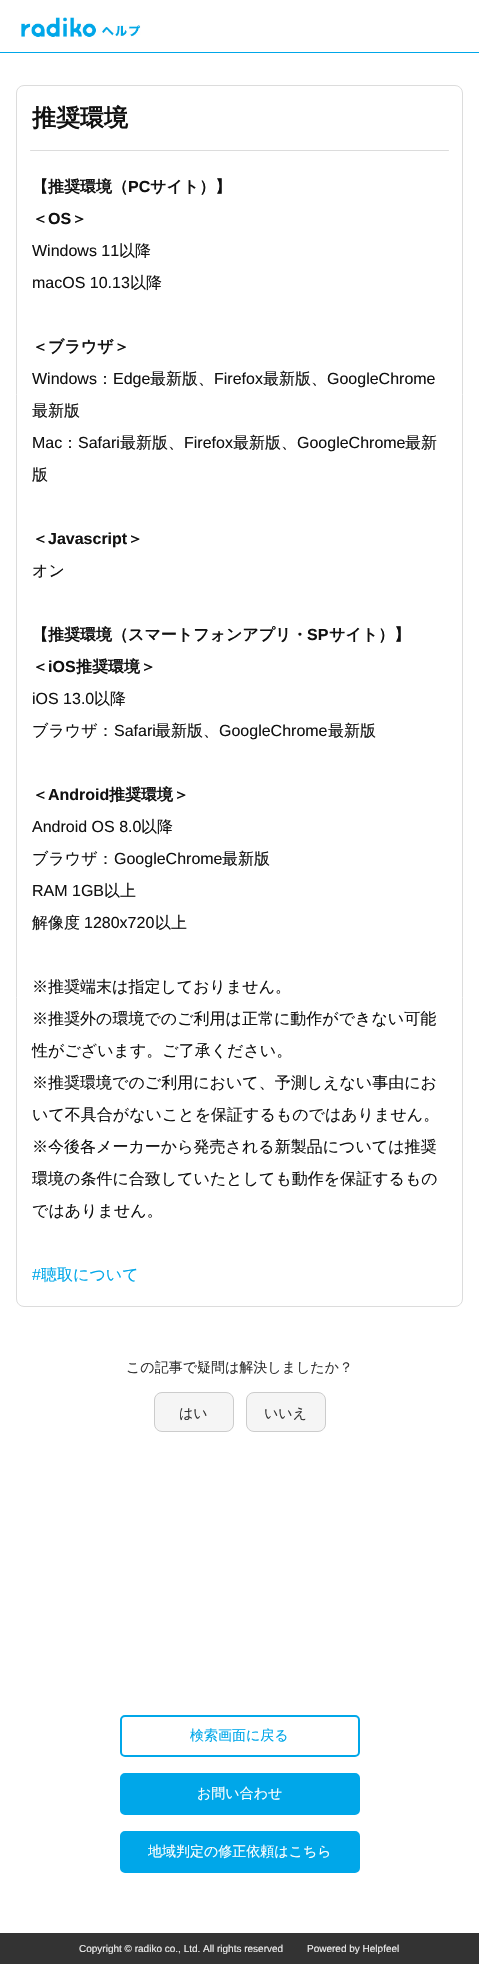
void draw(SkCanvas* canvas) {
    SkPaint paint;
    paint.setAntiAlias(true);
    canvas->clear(0xFFFFFFFF);
    paint.setColor(0xFF00A7E9);
    canvas->drawRect(SkRect::MakeXYWH(0, 52, 479, 1), paint);
    canvas->drawImageRect(SkImages::DeferredFromEncodedData(SkData::MakeFromFileName("img1.png")), SkRect::MakeXYWH(21, 17, 120, 20), SkSamplingOptions());
    paint.setStyle(SkPaint::kStroke_Style);
    paint.setStrokeWidth(1);
    paint.setColor(0xFFDCDCDC);
    canvas->drawRoundRect(SkRect::MakeXYWH(16.5f, 85.5f, 446, 1221), 7.5f, 7.5f, paint);
    SkFont font1(fontMgr->matchFamilyStyle("WenQuanYi Zen Hei", SkFontStyle::Bold()), 24);
    font1.setSubpixel(true);
    paint.setStyle(SkPaint::kFill_Style);
    paint.setColor(0xFF111111);
    canvas->drawString("推奨環境", 32, 126, font1, paint);
    paint.setColor(0xFFDCDCDC);
    canvas->drawRoundRect(SkRect::MakeXYWH(30, 150, 419, 1), 0.5f, 0.5f, paint);
    SkFont font2(fontMgr->matchFamilyStyle("WenQuanYi Zen Hei", SkFontStyle::Bold()), 16);
    font2.setSubpixel(true);
    paint.setColor(0xFF111111);
    canvas->drawString("【推奨環境（", 32, 192, font2, paint);
    SkFont font3(fontMgr->matchFamilyStyle("Liberation Sans", SkFontStyle::Bold()), 16);
    font3.setSubpixel(true);
    canvas->drawString("PC", 128, 192, font3, paint);
    canvas->drawString("サイト）】", 150, 192, font2, paint);
    canvas->drawString("＜", 32, 224, font2, paint);
    canvas->drawString("OS", 48, 224, font3, paint);
    canvas->drawString("＞", 71, 224, font2, paint);
    SkFont font4(fontMgr->matchFamilyStyle("Liberation Sans", SkFontStyle::Normal()), 16);
    font4.setSubpixel(true);
    canvas->drawString("Windows 11", 32, 256, font4, paint);
    SkFont font5(fontMgr->matchFamilyStyle("WenQuanYi Zen Hei", SkFontStyle(500, SkFontStyle::kNormal_Width, SkFontStyle::kUpright_Slant)), 16);
    font5.setSubpixel(true);
    canvas->drawString("以降", 119, 256, font5, paint);
    canvas->drawString("macOS 10.13", 32, 288, font4, paint);
    canvas->drawString("以降", 130, 288, font5, paint);
    canvas->drawString("＜ブラウザ＞", 32, 352, font2, paint);
    canvas->drawString("Windows", 32, 384, font4, paint);
    canvas->drawString("：", 97, 384, font5, paint);
    canvas->drawString("Edge", 113, 384, font4, paint);
    canvas->drawString("最新版、", 150, 384, font5, paint);
    canvas->drawString("Firefox", 214, 384, font4, paint);
    canvas->drawString("最新版、", 263, 384, font5, paint);
    canvas->drawString("GoogleChrome", 327, 384, font4, paint);
    canvas->drawString("最新版", 32, 416, font5, paint);
    canvas->drawString("Mac", 32, 448, font4, paint);
    canvas->drawString("：", 62, 448, font5, paint);
    canvas->drawString("Safari", 78, 448, font4, paint);
    canvas->drawString("最新版、", 120, 448, font5, paint);
    canvas->drawString("Firefox", 184, 448, font4, paint);
    canvas->drawString("最新版、", 233, 448, font5, paint);
    canvas->drawString("GoogleChrome", 297, 448, font4, paint);
    canvas->drawString("最新", 405, 448, font5, paint);
    canvas->drawString("版", 32, 480, font5, paint);
    canvas->drawString("＜", 32, 544, font2, paint);
    canvas->drawString("Javascript", 48, 544, font3, paint);
    canvas->drawString("＞", 127, 544, font2, paint);
    canvas->drawString("オン", 32, 576, font5, paint);
    canvas->drawString("【推奨環境（スマートフォンアプリ・", 32, 640, font2, paint);
    canvas->drawString("SP", 307, 640, font3, paint);
    canvas->drawString("サイト）】", 329, 640, font2, paint);
    canvas->drawString("＜", 32, 672, font2, paint);
    canvas->drawString("iOS", 48, 672, font3, paint);
    canvas->drawString("推奨環境＞", 76, 672, font2, paint);
    canvas->drawString("iOS 13.0", 32, 704, font4, paint);
    canvas->drawString("以降", 94, 704, font5, paint);
    canvas->drawString("ブラウザ：", 32, 736, font5, paint);
    canvas->drawString("Safari", 114, 736, font4, paint);
    canvas->drawString("最新版、", 155, 736, font5, paint);
    canvas->drawString("GoogleChrome", 219, 736, font4, paint);
    canvas->drawString("最新版", 328, 736, font5, paint);
    canvas->drawString("＜", 32, 800, font2, paint);
    canvas->drawString("Android", 48, 800, font3, paint);
    canvas->drawString("推奨環境＞", 109, 800, font2, paint);
    canvas->drawString("Android OS 8.0", 32, 832, font4, paint);
    canvas->drawString("以降", 141, 832, font5, paint);
    canvas->drawString("ブラウザ：", 32, 864, font5, paint);
    canvas->drawString("GoogleChrome", 114, 864, font4, paint);
    canvas->drawString("最新版", 222, 864, font5, paint);
    canvas->drawString("RAM 1GB", 32, 896, font4, paint);
    canvas->drawString("以上", 104, 896, font5, paint);
    canvas->drawString("解像度", 32, 928, font5, paint);
    canvas->drawString("1280x720", 84, 928, font4, paint);
    canvas->drawString("以上", 155, 928, font5, paint);
    canvas->drawString("※推奨端末は指定しておりません。", 32, 992, font5, paint);
    canvas->drawString("※推奨外の環境でのご利用は正常に動作ができない可能", 32, 1024, font5, paint);
    canvas->drawString("性がございます。ご了承ください。", 32, 1056, font5, paint);
    canvas->drawString("※推奨環境でのご利用において、予測しえない事由にお", 32, 1088, font5, paint);
    canvas->drawString("いて不具合がないことを保証するものではありません。", 32, 1120, font5, paint);
    canvas->drawString("※今後各メーカーから発売される新製品については推奨", 32, 1152, font5, paint);
    canvas->drawString("環境の条件に合致していたとしても動作を保証するもの", 32, 1184, font5, paint);
    canvas->drawString("ではありません。", 32, 1216, font5, paint);
    paint.setColor(0xFF00A7E9);
    canvas->drawString("#", 32, 1280, font4, paint);
    canvas->drawString("聴取について", 41, 1280, font5, paint);
    SkFont font6(fontMgr->matchFamilyStyle("WenQuanYi Zen Hei", SkFontStyle(500, SkFontStyle::kNormal_Width, SkFontStyle::kUpright_Slant)), 14);
    font6.setSubpixel(true);
    paint.setColor(0xFF333333);
    canvas->drawString("この記事で疑問は解決しましたか？", 126, 1372, font6, paint);
    paint.setColor(0xFFF5F5F5);
    canvas->drawRoundRect(SkRect::MakeXYWH(154.5f, 1392.5f, 79, 39), 7.5f, 7.5f, paint);
    paint.setStyle(SkPaint::kStroke_Style);
    paint.setColor(0xFFCCCCCC);
    canvas->drawRoundRect(SkRect::MakeXYWH(154.5f, 1392.5f, 79, 39), 7.5f, 7.5f, paint);
    paint.setStyle(SkPaint::kFill_Style);
    paint.setColor(0xFF333333);
    canvas->drawString("はい", 179, 1418, font6, paint);
    paint.setColor(0xFFF5F5F5);
    canvas->drawRoundRect(SkRect::MakeXYWH(246.5f, 1392.5f, 79, 39), 7.5f, 7.5f, paint);
    paint.setStyle(SkPaint::kStroke_Style);
    paint.setColor(0xFFCCCCCC);
    canvas->drawRoundRect(SkRect::MakeXYWH(246.5f, 1392.5f, 79, 39), 7.5f, 7.5f, paint);
    paint.setStyle(SkPaint::kFill_Style);
    paint.setColor(0xFF333333);
    canvas->drawString("いいえ", 264, 1418, font6, paint);
    paint.setStyle(SkPaint::kStroke_Style);
    paint.setStrokeWidth(2);
    paint.setColor(0xFF00A7E9);
    canvas->drawRoundRect(SkRect::MakeXYWH(121, 1716, 238, 40), 4, 4, paint);
    paint.setStyle(SkPaint::kFill_Style);
    canvas->drawString("検索画面に戻る", 190, 1740, font6, paint);
    canvas->drawRoundRect(SkRect::MakeXYWH(121, 1774, 238, 40), 4, 4, paint);
    paint.setStyle(SkPaint::kStroke_Style);
    canvas->drawRoundRect(SkRect::MakeXYWH(121, 1774, 238, 40), 4, 4, paint);
    paint.setStyle(SkPaint::kFill_Style);
    paint.setColor(0xFFFFFFFF);
    canvas->drawString("お問い合わせ", 197, 1798, font6, paint);
    paint.setColor(0xFF00A7E9);
    canvas->drawRoundRect(SkRect::MakeXYWH(121, 1832, 238, 40), 4, 4, paint);
    paint.setStyle(SkPaint::kStroke_Style);
    canvas->drawRoundRect(SkRect::MakeXYWH(121, 1832, 238, 40), 4, 4, paint);
    paint.setStyle(SkPaint::kFill_Style);
    paint.setColor(0xFFFFFFFF);
    canvas->drawString("地域判定の修正依頼はこちら", 148, 1856, font6, paint);
    paint.setColor(0xFF333333);
    canvas->drawRect(SkRect::MakeXYWH(0, 1933, 479, 31), paint);
    SkFont font7(fontMgr->matchFamilyStyle("Liberation Sans", SkFontStyle::Normal()), 10);
    font7.setSubpixel(true);
    paint.setColor(0xFFEEEEEE);
    canvas->drawString("Copyright © radiko co., Ltd. All rights reserved", 79, 1952, font7, paint);
    canvas->drawString("Powered by Helpfeel", 307, 1952, font7, paint);
}
